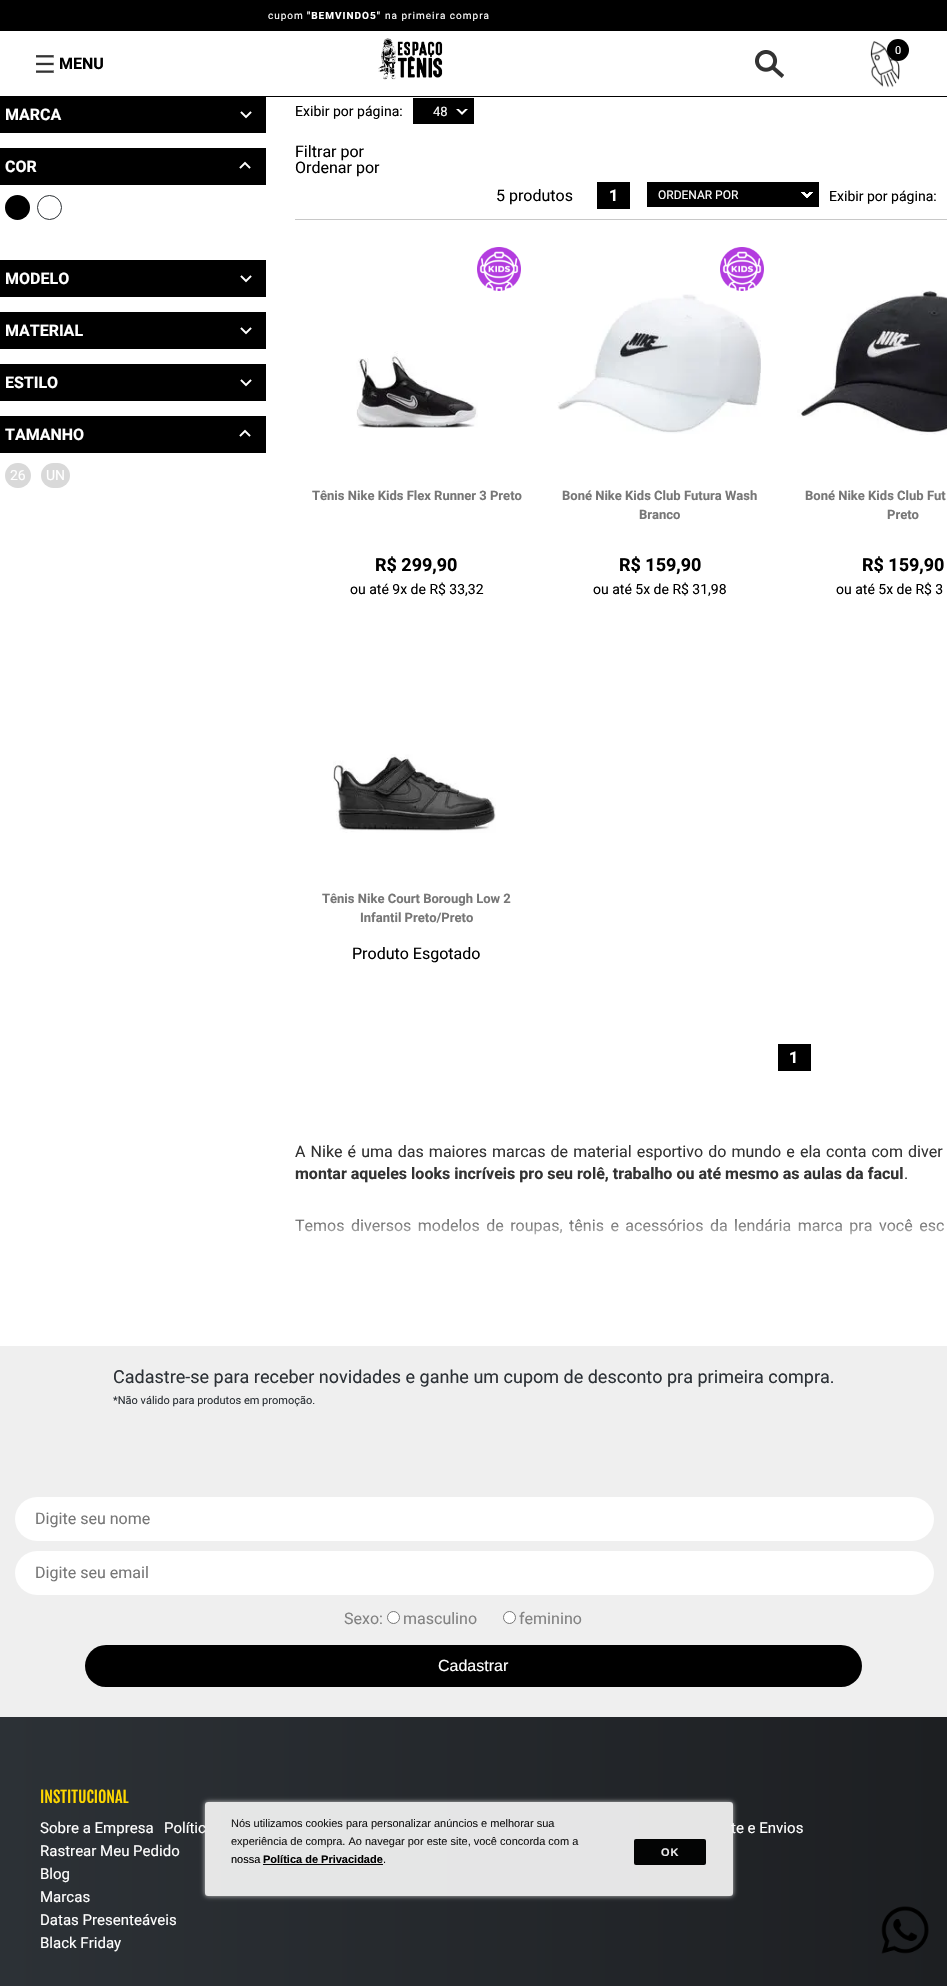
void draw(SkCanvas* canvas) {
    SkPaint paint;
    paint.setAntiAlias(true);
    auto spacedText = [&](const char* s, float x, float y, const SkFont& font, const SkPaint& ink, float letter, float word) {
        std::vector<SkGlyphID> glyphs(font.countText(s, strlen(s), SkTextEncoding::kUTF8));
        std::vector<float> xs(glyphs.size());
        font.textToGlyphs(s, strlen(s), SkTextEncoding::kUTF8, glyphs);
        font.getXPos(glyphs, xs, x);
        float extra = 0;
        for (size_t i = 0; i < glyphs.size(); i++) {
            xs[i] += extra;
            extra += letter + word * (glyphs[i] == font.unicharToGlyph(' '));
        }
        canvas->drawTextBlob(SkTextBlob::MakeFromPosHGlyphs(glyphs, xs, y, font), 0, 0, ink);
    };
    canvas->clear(0xFFFFFFFF);
    paint.setColor(0xFF000000);
    canvas->drawRect(SkRect::MakeXYWH(0, 0, 947, 31), paint);
    SkFont font1(fontMgr->matchFamilyStyle("Heebo", SkFontStyle::Normal()), 10);
    font1.setSubpixel(true);
    paint.setColor(0xFFFFFFFF);
    spacedText("cupom", 268, 19, font1, paint, 1, 0);
    SkFont font2(fontMgr->matchFamilyStyle("Heebo", SkFontStyle::Bold()), 10);
    font2.setSubpixel(true);
    spacedText("\"BEMVINDO5\"", 307, 19, font2, paint, 1, 0);
    spacedText("na primeira compra", 385, 19, font1, paint, 1, 0);
    paint.setColor(0xFF000000);
    canvas->drawRect(SkRect::MakeXYWH(0, 96, 947, 1), paint);
    canvas->drawImageRect(SkImages::DeferredFromEncodedData(SkData::MakeFromFileName("img1.png")), SkRect::MakeXYWH(36, 55, 18, 18), SkSamplingOptions());
    SkFont font3(fontMgr->matchFamilyStyle("Heebo", SkFontStyle::Bold()), 16);
    font3.setSubpixel(true);
    canvas->drawString("MENU", 59, 69, font3, paint);
    canvas->drawImageRect(SkImages::DeferredFromEncodedData(SkData::MakeFromFileName("img2.png")), SkRect::MakeXYWH(378, 38, 65, 42), SkSamplingOptions());
    canvas->drawImageRect(SkImages::DeferredFromEncodedData(SkData::MakeFromFileName("img3.png")), SkRect::MakeXYWH(755, 50, 29, 28), SkSamplingOptions());
    canvas->drawImageRect(SkImages::DeferredFromEncodedData(SkData::MakeFromFileName("img4.png")), SkRect::MakeXYWH(870, 41, 30, 47), SkSamplingOptions());
    canvas->drawCircle(898, 50, 11, paint);
    SkFont font4(fontMgr->matchFamilyStyle("Heebo", SkFontStyle::Normal()), 11);
    font4.setSubpixel(true);
    paint.setColor(0xFFFFFFFF);
    canvas->drawString("0", 895, 54, font4, paint);
    paint.setColor(0xFF000000);
    canvas->drawRect(SkRect::MakeXYWH(0, 97, 266, 36), paint);
    paint.setColor(0xFFFFFFFF);
    canvas->drawString("MARCA", 5, 120, font3, paint);
    canvas->drawImageRect(SkImages::DeferredFromEncodedData(SkData::MakeFromFileName("img5.png")), SkRect::MakeXYWH(240, 111, 12, 8), SkSamplingOptions());
    paint.setColor(0xFF000000);
    canvas->drawRect(SkRect::MakeXYWH(0, 148, 266, 37), paint);
    paint.setColor(0xFFFFFFFF);
    canvas->drawString("COR", 5, 172, font3, paint);
    canvas->drawImageRect(SkImages::DeferredFromEncodedData(SkData::MakeFromFileName("img6.png")), SkRect::MakeXYWH(239, 161, 12, 8), SkSamplingOptions());
    paint.setColor(0xFF000000);
    canvas->drawCircle(17.5f, 207.5f, 12.5f, paint);
    paint.setStyle(SkPaint::kStroke_Style);
    paint.setStrokeWidth(1);
    paint.setColor(0xFF2B3034);
    canvas->drawCircle(49.5f, 207.5f, 12, paint);
    paint.setStyle(SkPaint::kFill_Style);
    paint.setColor(0xFF000000);
    canvas->drawRect(SkRect::MakeXYWH(0, 260, 266, 37), paint);
    paint.setColor(0xFFFFFFFF);
    canvas->drawString("MODELO", 5, 284, font3, paint);
    canvas->drawImageRect(SkImages::DeferredFromEncodedData(SkData::MakeFromFileName("img5.png")), SkRect::MakeXYWH(240, 275, 12, 8), SkSamplingOptions());
    paint.setColor(0xFF000000);
    canvas->drawRect(SkRect::MakeXYWH(0, 312, 266, 37), paint);
    paint.setColor(0xFFFFFFFF);
    canvas->drawString("MATERIAL", 5, 336, font3, paint);
    canvas->drawImageRect(SkImages::DeferredFromEncodedData(SkData::MakeFromFileName("img5.png")), SkRect::MakeXYWH(240, 327, 12, 8), SkSamplingOptions());
    paint.setColor(0xFF000000);
    canvas->drawRect(SkRect::MakeXYWH(0, 364, 266, 37), paint);
    paint.setColor(0xFFFFFFFF);
    canvas->drawString("ESTILO", 5, 388, font3, paint);
    canvas->drawImageRect(SkImages::DeferredFromEncodedData(SkData::MakeFromFileName("img5.png")), SkRect::MakeXYWH(240, 379, 12, 8), SkSamplingOptions());
    paint.setColor(0xFF000000);
    canvas->drawRect(SkRect::MakeXYWH(0, 416, 266, 37), paint);
    paint.setColor(0xFFFFFFFF);
    canvas->drawString("TAMANHO", 5, 440, font3, paint);
    canvas->drawImageRect(SkImages::DeferredFromEncodedData(SkData::MakeFromFileName("img6.png")), SkRect::MakeXYWH(239, 429, 12, 8), SkSamplingOptions());
    paint.setColor(0xFFD9D9D9);
    canvas->drawRoundRect(SkRect::MakeXYWH(5, 463, 26, 25), 12.5f, 12.5f, paint);
    SkFont font5(fontMgr->matchFamilyStyle("Heebo", SkFontStyle::Normal()), 14);
    font5.setSubpixel(true);
    paint.setColor(0xFFFFFFFF);
    canvas->drawString("26", 10, 480, font5, paint);
    paint.setColor(0xFFD9D9D9);
    canvas->drawRoundRect(SkRect::MakeXYWH(41, 463, 29, 25), 12.5f, 12.5f, paint);
    paint.setColor(0xFFFFFFFF);
    canvas->drawString("UN", 46, 480, font5, paint);
    paint.setColor(0xFF000000);
    canvas->drawString("Exibir por página:", 295, 116, font5, paint);
    canvas->drawRect(SkRect::MakeXYWH(413, 98, 61, 26), paint);
    SkFont font6(fontMgr->matchFamilyStyle("Heebo", SkFontStyle::Normal()), 13);
    font6.setSubpixel(true);
    paint.setColor(0xFFFFFFFF);
    canvas->drawString("48", 433, 116, font6, paint);
    canvas->drawImageRect(SkImages::DeferredFromEncodedData(SkData::MakeFromFileName("img7.png")), SkRect::MakeXYWH(456, 109, 12, 6), SkSamplingOptions());
    SkFont font7(fontMgr->matchFamilyStyle("Heebo", SkFontStyle::Normal()), 16);
    font7.setSubpixel(true);
    paint.setColor(0xFF000000);
    canvas->drawString("Filtrar por", 295, 157, font7, paint);
    canvas->drawString("Ordenar por", 295, 173, font7, paint);
    canvas->drawString("5 produtos", 496, 201, font7, paint);
    canvas->drawRect(SkRect::MakeXYWH(597, 182, 33, 27), paint);
    paint.setColor(0xFFFFFFFF);
    canvas->drawString("1", 609, 201, font3, paint);
    paint.setColor(0xFF000000);
    canvas->drawRect(SkRect::MakeXYWH(647, 182, 172, 25), paint);
    SkFont font8(fontMgr->matchFamilyStyle("Heebo", SkFontStyle::Normal()), 12);
    font8.setSubpixel(true);
    paint.setColor(0xFFFFFFFF);
    canvas->drawString("ORDENAR POR", 658, 199, font8, paint);
    canvas->drawImageRect(SkImages::DeferredFromEncodedData(SkData::MakeFromFileName("img7.png")), SkRect::MakeXYWH(801, 192, 12, 6), SkSamplingOptions());
    canvas->drawImageRect(SkImages::DeferredFromEncodedData(SkData::MakeFromFileName("img8.png")), SkRect::MakeXYWH(801, 192, 12, 6), SkSamplingOptions());
    canvas->drawImageRect(SkImages::DeferredFromEncodedData(SkData::MakeFromFileName("img9.png")), SkRect::MakeXYWH(801, 192, 12, 6), SkSamplingOptions());
    canvas->drawImageRect(SkImages::DeferredFromEncodedData(SkData::MakeFromFileName("img10.png")), SkRect::MakeXYWH(801, 192, 12, 6), SkSamplingOptions());
    canvas->drawImageRect(SkImages::DeferredFromEncodedData(SkData::MakeFromFileName("img11.png")), SkRect::MakeXYWH(801, 192, 12, 6), SkSamplingOptions());
    canvas->drawImageRect(SkImages::DeferredFromEncodedData(SkData::MakeFromFileName("img12.png")), SkRect::MakeXYWH(804, 192, 6, 3), SkSamplingOptions());
    canvas->drawImageRect(SkImages::DeferredFromEncodedData(SkData::MakeFromFileName("img13.png")), SkRect::MakeXYWH(804, 192, 6, 3), SkSamplingOptions());
    canvas->drawImageRect(SkImages::DeferredFromEncodedData(SkData::MakeFromFileName("img14.png")), SkRect::MakeXYWH(804, 192, 6, 2), SkSamplingOptions());
    paint.setColor(0xFF000000);
    canvas->drawString("Exibir por página:", 829, 201, font5, paint);
    paint.setColor(0xFFC8C8C8);
    canvas->drawRect(SkRect::MakeXYWH(295, 219, 652, 1), paint);
    canvas->drawImageRect(SkImages::DeferredFromEncodedData(SkData::MakeFromFileName("img15.png")), SkRect::MakeXYWH(477, 247, 44, 44), SkSamplingOptions());
    canvas->drawImageRect(SkImages::DeferredFromEncodedData(SkData::MakeFromFileName("img16.png")), SkRect::MakeXYWH(356, 351, 122, 77), SkSamplingOptions());
    SkFont font9(fontMgr->matchFamilyStyle("Heebo", SkFontStyle::Bold()), 13);
    font9.setSubpixel(true);
    paint.setColor(0xFF777777);
    canvas->drawString("Tênis Nike Kids Flex Runner 3 Preto", 312, 500, font9, paint);
    SkFont font10(fontMgr->matchFamilyStyle("Heebo", SkFontStyle::Bold()), 18);
    font10.setSubpixel(true);
    paint.setColor(0xFF000000);
    canvas->drawString("R$ 299,90", 375, 571, font10, paint);
    canvas->drawString("ou até 9x de R$ 33,32", 350, 594, font5, paint);
    canvas->drawImageRect(SkImages::DeferredFromEncodedData(SkData::MakeFromFileName("img15.png")), SkRect::MakeXYWH(720, 247, 44, 44), SkSamplingOptions());
    canvas->drawImageRect(SkImages::DeferredFromEncodedData(SkData::MakeFromFileName("img17.png")), SkRect::MakeXYWH(557, 294, 204, 140), SkSamplingOptions());
    paint.setColor(0xFF777777);
    canvas->drawString("Boné Nike Kids Club Futura Wash", 562, 500, font9, paint);
    canvas->drawString("Branco", 639, 519, font9, paint);
    paint.setColor(0xFF000000);
    canvas->drawString("R$ 159,90", 619, 571, font10, paint);
    canvas->drawString("ou até 5x de R$ 31,98", 593, 594, font5, paint);
    canvas->drawImageRect(SkImages::DeferredFromEncodedData(SkData::MakeFromFileName("img18.png")), SkRect::MakeXYWH(797, 290, 150, 145), SkSamplingOptions());
    paint.setColor(0xFF777777);
    canvas->drawString("Boné Nike Kids Club Fut", 805, 500, font9, paint);
    canvas->drawString("Preto", 887, 519, font9, paint);
    paint.setColor(0xFF000000);
    canvas->drawString("R$ 159,90", 862, 571, font10, paint);
    canvas->drawString("ou até 5x de R$ 3", 836, 594, font5, paint);
    canvas->drawImageRect(SkImages::DeferredFromEncodedData(SkData::MakeFromFileName("img19.png")), SkRect::MakeXYWH(333, 754, 163, 79), SkSamplingOptions());
    paint.setColor(0xFF777777);
    canvas->drawString("Tênis Nike Court Borough Low 2", 322, 903, font9, paint);
    canvas->drawString("Infantil Preto/Preto", 360, 922, font9, paint);
    paint.setColor(0xFF000000);
    canvas->drawString("Produto Esgotado", 352, 959, font7, paint);
    canvas->drawRect(SkRect::MakeXYWH(778, 1044, 33, 27), paint);
    paint.setColor(0xFFFFFFFF);
    canvas->drawString("1", 789, 1063, font3, paint);
    paint.setColor(0xFF333333);
    spacedText("A Nike é uma das maiores marcas de material esportivo do mundo e ela conta com diver", 295, 1157, font7, paint, 0, 1.1f);
    canvas->drawString("montar aqueles looks incríveis pro seu rolê, trabalho ou até mesmo as aulas da facul", 295, 1179, font3, paint);
    canvas->drawString(".", 904, 1179, font7, paint);
    spacedText("Temos diversos modelos de roupas, tênis e acessórios da lendária marca pra você esc", 295, 1231, font7, paint, 0, 2.5f);
    {
        const SkColor colors[] = {0xFFFFFFFF, 0xFFFFFFFF, 0x00FFFFFF};
        const float stops[] = {0, 0.5f, 1};
        const SkPoint ends[] = {{798, 1286}, {798, 1211}};
        paint.setShader(SkGradientShader::MakeLinear(ends, colors, stops, 3, SkTileMode::kClamp));
        paint.setAlpha(255);
    }
    canvas->drawRect(SkRect::MakeXYWH(295, 1219, 649, 16), paint);
    {
        const SkColor colors[] = {0xFF2C3136, 0xFF1D1F22};
        const float stops[] = {0, 1};
        const SkPoint ends[] = {{0, 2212}, {947, 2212}};
        paint.setShader(SkGradientShader::MakeLinear(ends, colors, stops, 2, SkTileMode::kClamp));
        paint.setAlpha(255);
    }
    canvas->drawRect(SkRect::MakeXYWH(0, 1717, 947, 269), paint);
    paint.setShader(nullptr);
    paint.setColor(0xFFEFEFEF);
    canvas->drawRect(SkRect::MakeXYWH(0, 1346, 947, 371), paint);
    SkFont font11(fontMgr->matchFamilyStyle("Heebo", SkFontStyle::Normal()), 18);
    font11.setSubpixel(true);
    paint.setColor(0xFF2C3136);
    canvas->drawString("Cadastre-se para receber novidades e ganhe um cupom de desconto pra primeira compra.", 113, 1383, font11, paint);
    canvas->drawString("*Não válido para produtos em promoção.", 113, 1404, font4, paint);
    paint.setColor(0xFFFFFFFF);
    canvas->drawRoundRect(SkRect::MakeXYWH(15, 1497, 919, 44), 22, 22, paint);
    paint.setColor(0xFF777777);
    canvas->drawString("Digite seu nome", 35, 1524, font7, paint);
    paint.setColor(0xFFFFFFFF);
    canvas->drawRoundRect(SkRect::MakeXYWH(15, 1551, 919, 44), 22, 22, paint);
    paint.setColor(0xFF777777);
    canvas->drawString("Digite seu email", 35, 1578, font7, paint);
    paint.setColor(0xFF000000);
    canvas->drawRoundRect(SkRect::MakeXYWH(85, 1645, 777, 42), 21, 21, paint);
    SkFont font12(fontMgr->matchFamilyStyle("Liberation Sans", SkFontStyle::Normal()), 16);
    font12.setSubpixel(true);
    paint.setColor(0xFFFFFFFF);
    canvas->drawString("Cadastrar", 438, 1671, font12, paint);
    paint.setColor(0xFF828282);
    canvas->drawString("Sexo:", 344, 1624, font7, paint);
    paint.setColor(0xFFFFFFFF);
    canvas->drawCircle(393.5f, 1617.5f, 6, paint);
    paint.setStyle(SkPaint::kStroke_Style);
    paint.setColor(0xFF767676);
    canvas->drawCircle(393.5f, 1617.5f, 6, paint);
    paint.setStyle(SkPaint::kFill_Style);
    paint.setColor(0xFF828282);
    canvas->drawString("masculino", 403, 1624, font7, paint);
    paint.setColor(0xFFFFFFFF);
    canvas->drawCircle(509.5f, 1617.5f, 6, paint);
    paint.setStyle(SkPaint::kStroke_Style);
    paint.setColor(0xFF767676);
    canvas->drawCircle(509.5f, 1617.5f, 6, paint);
    paint.setStyle(SkPaint::kFill_Style);
    paint.setColor(0xFF828282);
    canvas->drawString("feminino", 519, 1624, font7, paint);
    SkFont font13(fontMgr->matchFamilyStyle("Fjalla One", SkFontStyle::Normal()), 16);
    font13.setSubpixel(true);
    paint.setColor(0xFFFFD800);
    canvas->drawString("INSTITUCIONAL", 40, 1803, font13, paint);
    SkFont font14(fontMgr->matchFamilyStyle("Heebo", SkFontStyle::Normal()), 15);
    font14.setSubpixel(true);
    paint.setColor(0xFFFFFFFF);
    canvas->drawString("Sobre a Empresa", 40, 1833, font14, paint);
    canvas->drawString("Polític", 164, 1833, font14, paint);
    canvas->drawString("te e Envios", 731, 1833, font14, paint);
    canvas->drawString("Rastrear Meu Pedido", 40, 1856, font14, paint);
    canvas->drawString("Blog", 40, 1879, font14, paint);
    canvas->drawString("Marcas", 40, 1902, font14, paint);
    canvas->drawString("Datas Presenteáveis", 40, 1925, font14, paint);
    canvas->drawString("Black Friday", 40, 1948, font14, paint);
    canvas->save();
    canvas->clipPath(SkPathBuilder(SkPathFillType::kEvenOdd).moveTo(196, 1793).lineTo(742, 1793).lineTo(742, 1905).lineTo(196, 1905).close().moveTo(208, 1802).lineTo(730, 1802).cubicTo(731.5f, 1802, 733, 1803.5f, 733, 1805).lineTo(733, 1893).cubicTo(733, 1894.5f, 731.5f, 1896, 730, 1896).lineTo(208, 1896).cubicTo(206.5f, 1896, 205, 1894.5f, 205, 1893).lineTo(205, 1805).cubicTo(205, 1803.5f, 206.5f, 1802, 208, 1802).close().detach(), true);
    paint.setColor(0xE6D3D3D3);
    paint.setMaskFilter(SkMaskFilter::MakeBlur(kNormal_SkBlurStyle, 2.5f));
    canvas->drawRoundRect(SkRect::MakeXYWH(205, 1802, 528, 94), 3, 3, paint);
    paint.setMaskFilter(nullptr);
    canvas->restore();
    paint.setColor(0xE6FAFAFA);
    canvas->drawRoundRect(SkRect::MakeXYWH(205, 1802, 528, 94), 3, 3, paint);
    SkFont font15(fontMgr->matchFamilyStyle("Liberation Sans", SkFontStyle::Normal()), 11);
    font15.setSubpixel(true);
    paint.setColor(0xFF171717);
    canvas->drawString("Nós utilizamos cookies para personalizar anúncios e melhorar sua", 231, 1827, font15, paint);
    canvas->drawString("experiência de compra. Ao navegar por este site, você concorda com a", 231, 1845, font15, paint);
    paint.setColor(0xFF000000);
    canvas->drawString("nossa", 231, 1863, font15, paint);
    SkFont font16(fontMgr->matchFamilyStyle("Liberation Sans", SkFontStyle::Bold()), 11);
    font16.setSubpixel(true);
    canvas->drawString("Política de Privacidade", 263, 1863, font16, paint);
    paint.setColor(0xFF040405);
    canvas->drawRect(SkRect::MakeXYWH(263, 1864, 120, 1), paint);
    paint.setColor(0xFF000000);
    canvas->drawString(".", 383, 1863, font15, paint);
    paint.setColor(0xFF030404);
    canvas->drawRoundRect(SkRect::MakeXYWH(634, 1839, 72, 26), 2, 2, paint);
    paint.setColor(0xFFE9E9EA);
    spacedText("OK", 661, 1856, font16, paint, 1, 0);
    canvas->drawImageRect(SkImages::DeferredFromEncodedData(SkData::MakeFromFileName("img20.png")), SkRect::MakeXYWH(881, 1906, 48, 48), SkSamplingOptions());
}
